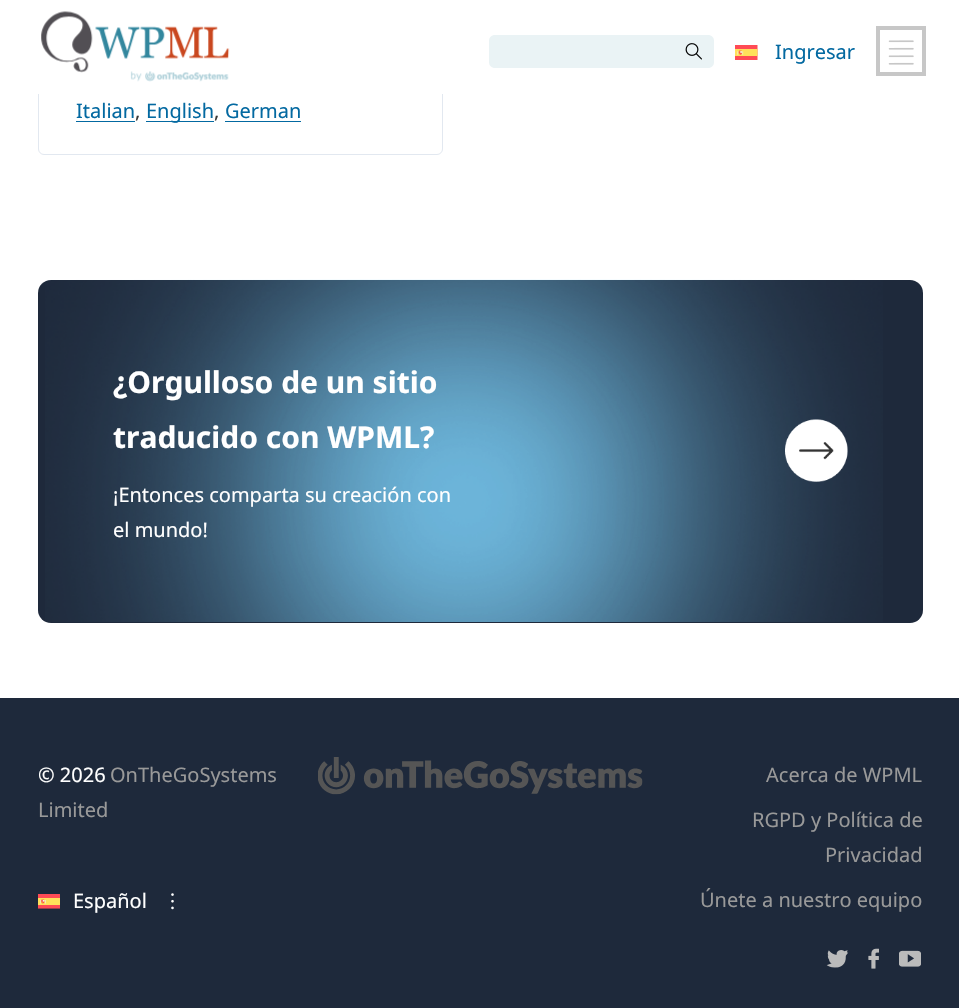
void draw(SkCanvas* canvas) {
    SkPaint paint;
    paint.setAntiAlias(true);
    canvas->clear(0xFFFFFFFF);
    paint.setStyle(SkPaint::kStroke_Style);
    paint.setStrokeWidth(1);
    paint.setColor(0xFFE2E8F0);
    canvas->drawRoundRect(SkRect::MakeXYWH(38.5f, -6.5f, 404, 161), 5.5f, 5.5f, paint);
    paint.setStyle(SkPaint::kFill_Style);
    paint.setColor(0xFFFFFFFF);
    canvas->drawRect(SkRect::MakeXYWH(38, 0, 405, 94), paint);
    canvas->drawImageRect(SkImages::DeferredFromEncodedData(SkData::MakeFromFileName("img1.png")), SkRect::MakeXYWH(41, 11, 189, 71), SkSamplingOptions());
    paint.setColor(0xFFEAF3F5);
    canvas->drawPath(SkPathBuilder().moveTo(495, 35).lineTo(676, 35).lineTo(676, 68).lineTo(495, 68).cubicTo(491.5f, 68, 489, 65.5f, 489, 62).lineTo(489, 41).cubicTo(489, 37.5f, 491.5f, 35, 495, 35).close().detach(), paint);
    canvas->drawPath(SkPathBuilder().moveTo(674, 35).lineTo(708, 35).cubicTo(711.5f, 35, 714, 37.5f, 714, 41).lineTo(714, 62).cubicTo(714, 65.5f, 711.5f, 68, 708, 68).lineTo(674, 68).close().detach(), paint);
    canvas->drawImageRect(SkImages::DeferredFromEncodedData(SkData::MakeFromFileName("img2.png")), SkRect::MakeXYWH(685, 43, 17, 17), SkSamplingOptions());
    canvas->drawImageRect(SkImages::DeferredFromEncodedData(SkData::MakeFromFileName("img3.png")), SkRect::MakeXYWH(735, 45, 23, 15), SkSamplingOptions());
    SkFont font1(fontMgr->matchFamilyStyle("Noto Sans", SkFontStyle::Normal()), 20);
    font1.setSubpixel(true);
    paint.setColor(0xFF0369A1);
    canvas->drawString("Ingresar", 775, 59, font1, paint);
    paint.setStyle(SkPaint::kStroke_Style);
    paint.setStrokeWidth(4);
    paint.setColor(0xFFC7C7C7);
    canvas->drawRect(SkRect::MakeXYWH(878, 28, 46, 46), paint);
    canvas->drawImageRect(SkImages::DeferredFromEncodedData(SkData::MakeFromFileName("img4.png")), SkRect::MakeXYWH(888, 40, 26, 25), SkSamplingOptions());
    paint.setStyle(SkPaint::kFill_Style);
    paint.setColor(0xFF0369A1);
    canvas->drawString("Italian", 76, 118, font1, paint);
    canvas->drawRect(SkRect::MakeXYWH(76, 121, 59, 1), paint);
    paint.setColor(0xFF373737);
    canvas->drawString(",", 135, 118, font1, paint);
    paint.setColor(0xFF0369A1);
    canvas->drawRect(SkRect::MakeXYWH(146, 121, 68, 1), paint);
    canvas->drawString("English", 146, 118, font1, paint);
    paint.setColor(0xFF373737);
    canvas->drawString(",", 214, 118, font1, paint);
    paint.setColor(0xFF0369A1);
    canvas->drawString("German", 225, 118, font1, paint);
    canvas->drawRect(SkRect::MakeXYWH(225, 121, 76, 1), paint);
    paint.setColor(0xFF1E293B);
    canvas->drawRoundRect(SkRect::MakeXYWH(38, 280, 885, 343), 13, 13, paint);
    canvas->drawImageRect(SkImages::DeferredFromEncodedData(SkData::MakeFromFileName("img5.png")), SkRect::MakeXYWH(45, 279, 838, 343), SkSamplingOptions());
    SkFont font2(fontMgr->matchFamilyStyle("Noto Sans", SkFontStyle::Bold()), 30);
    font2.setSubpixel(true);
    paint.setColor(0xFFFFFFFF);
    canvas->drawString("¿Orgulloso de un sitio", 113, 393, font2, paint);
    canvas->drawString("traducido con WPML?", 113, 448, font2, paint);
    canvas->drawString("¡Entonces comparta su creación con", 113, 502, font1, paint);
    canvas->drawString("el mundo!", 113, 537, font1, paint);
    canvas->drawImageRect(SkImages::DeferredFromEncodedData(SkData::MakeFromFileName("img6.png")), SkRect::MakeXYWH(785, 419, 63, 63), SkSamplingOptions());
    paint.setColor(0xFF1E293B);
    canvas->drawRect(SkRect::MakeXYWH(0, 698, 959, 310), paint);
    paint.setColor(0xFFFFFFFF);
    canvas->drawString("© 2026", 38, 782, font1, paint);
    paint.setColor(0xFF999999);
    canvas->drawString("OnTheGoSystems", 110, 782, font1, paint);
    canvas->drawString("Limited", 38, 817, font1, paint);
    canvas->drawImageRect(SkImages::DeferredFromEncodedData(SkData::MakeFromFileName("img7.png")), SkRect::MakeXYWH(38, 894, 22, 15), SkSamplingOptions());
    paint.setColor(0xFFFFFFFF);
    canvas->drawString("Español", 73, 908, font1, paint);
    canvas->drawImageRect(SkImages::DeferredFromEncodedData(SkData::MakeFromFileName("img8.png")), SkRect::MakeXYWH(171, 893, 3, 17), SkSamplingOptions());
    canvas->drawImageRect(SkImages::DeferredFromEncodedData(SkData::MakeFromFileName("img9.png")), SkRect::MakeXYWH(318, 757, 325, 38), SkSamplingOptions());
    paint.setColor(0xFF999999);
    canvas->drawString("Acerca de WPML", 766, 782, font1, paint);
    canvas->drawString("RGPD y Política de", 752, 827, font1, paint);
    canvas->drawString("Privacidad", 825, 862, font1, paint);
    canvas->drawString("Únete a nuestro equipo", 700, 907, font1, paint);
    canvas->drawImageRect(SkImages::DeferredFromEncodedData(SkData::MakeFromFileName("img10.png")), SkRect::MakeXYWH(826, 950, 23, 18), SkSamplingOptions());
    canvas->drawImageRect(SkImages::DeferredFromEncodedData(SkData::MakeFromFileName("img11.png")), SkRect::MakeXYWH(868, 948, 11, 21), SkSamplingOptions());
    canvas->drawImageRect(SkImages::DeferredFromEncodedData(SkData::MakeFromFileName("img12.png")), SkRect::MakeXYWH(899, 950, 22, 17), SkSamplingOptions());
}
